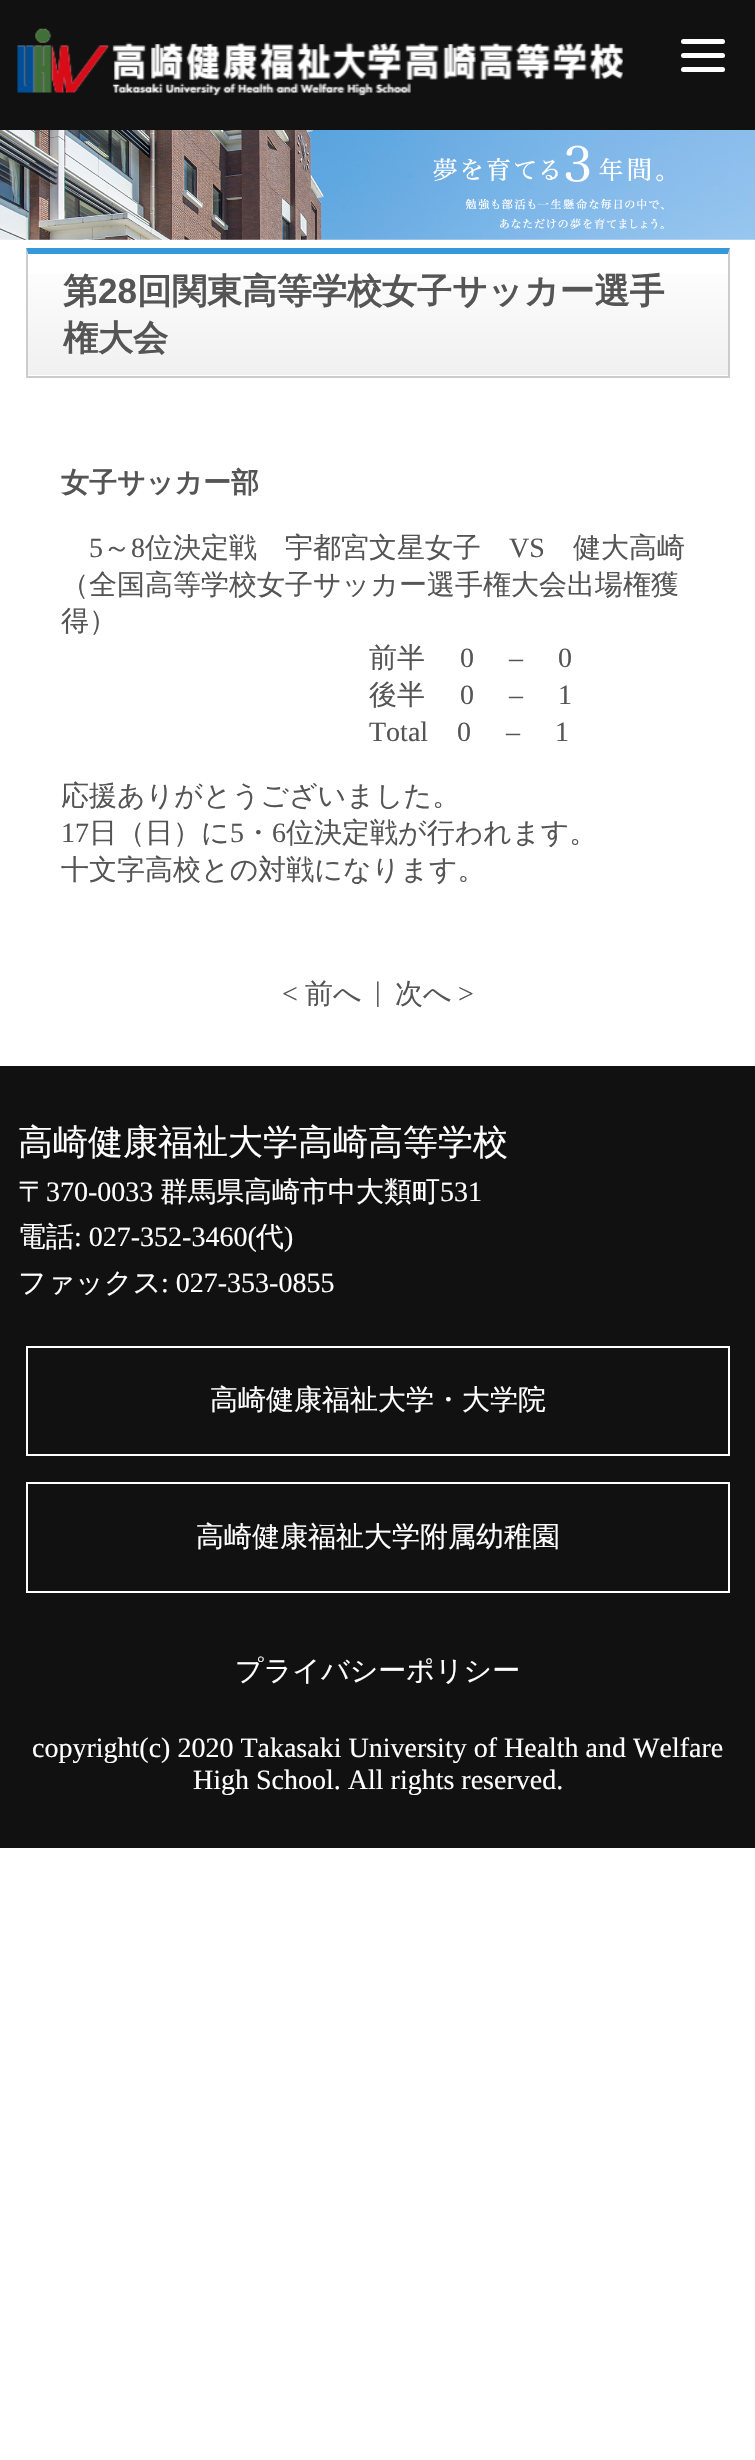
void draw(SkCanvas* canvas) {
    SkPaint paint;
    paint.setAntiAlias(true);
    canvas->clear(0xFFFFFFFF);
    paint.setColor(0xFF111111);
    canvas->drawRect(SkRect::MakeXYWH(0, 0, 755, 130), paint);
    canvas->drawImageRect(SkImages::DeferredFromEncodedData(SkData::MakeFromFileName("img1.png")), SkRect::MakeXYWH(17, 28, 606, 68), SkSamplingOptions());
    paint.setColor(0xFFFFFFFF);
    canvas->drawRoundRect(SkRect::MakeXYWH(681, 39, 44, 5), 2.5f, 2.5f, paint);
    canvas->drawRoundRect(SkRect::MakeXYWH(681, 53, 44, 5), 2.5f, 2.5f, paint);
    canvas->drawRoundRect(SkRect::MakeXYWH(681, 67, 44, 5), 2.5f, 2.5f, paint);
    canvas->drawImageRect(SkImages::DeferredFromEncodedData(SkData::MakeFromFileName("img2.png")), SkRect::MakeXYWH(0, 130, 755, 110), SkSamplingOptions());
    {
        const SkColor colors[] = {0xFFFFFFFF, 0xFFF0F0F0};
        const float stops[] = {0, 1};
        const SkPoint ends[] = {{378, 254}, {378, 376}};
        paint.setShader(SkGradientShader::MakeLinear(ends, colors, stops, 2, SkTileMode::kClamp));
        paint.setAlpha(255);
    }
    canvas->drawRect(SkRect::MakeXYWH(28, 274, 700, 101), paint);
    paint.setShader(nullptr);
    paint.setColor(0xFF3498DB);
    canvas->drawPath(SkPathBuilder().moveTo(26, 248).lineTo(730, 248).lineTo(728, 254).lineTo(28, 254).close().detach(), paint);
    paint.setColor(0xFFCCCCCC);
    canvas->drawPath(SkPathBuilder().moveTo(730, 248).lineTo(730, 378).lineTo(728, 376).lineTo(728, 254).close().detach(), paint);
    canvas->drawRect(SkRect::MakeXYWH(26, 376, 704, 2), paint);
    canvas->drawPath(SkPathBuilder().moveTo(26, 378).lineTo(26, 248).lineTo(28, 254).lineTo(28, 376).close().detach(), paint);
    SkFont font1(fontMgr->matchFamilyStyle("WenQuanYi Zen Hei", SkFontStyle::Bold()), 35);
    font1.setSubpixel(true);
    paint.setColor(0xFF555555);
    canvas->drawString("第", 63, 303, font1, paint);
    SkFont font2(fontMgr->matchFamilyStyle("Liberation Sans", SkFontStyle::Bold()), 35);
    font2.setSubpixel(true);
    canvas->drawString("28", 98, 303, font2, paint);
    canvas->drawString("回関東高等学校女子サッカー選手", 137, 303, font1, paint);
    canvas->drawString("権大会", 63, 350, font1, paint);
    SkFont font3(fontMgr->matchFamilyStyle("WenQuanYi Zen Hei", SkFontStyle::Bold()), 28);
    font3.setSubpixel(true);
    canvas->drawString("女子サッカー部", 61, 492, font3, paint);
    SkFont font4(fontMgr->matchFamilyStyle("Liberation Serif", SkFontStyle::Normal()), 28);
    font4.setSubpixel(true);
    canvas->drawString("5", 89, 557, font4, paint);
    SkFont font5(fontMgr->matchFamilyStyle("WenQuanYi Zen Hei", SkFontStyle(500, SkFontStyle::kNormal_Width, SkFontStyle::kUpright_Slant)), 28);
    font5.setSubpixel(true);
    canvas->drawString("～", 103, 557, font5, paint);
    canvas->drawString("8", 131, 557, font4, paint);
    canvas->drawString("位決定戦　宇都宮文星女子", 145, 557, font5, paint);
    canvas->drawString("VS", 509, 557, font4, paint);
    canvas->drawString("健大高崎", 573, 557, font5, paint);
    canvas->drawString("（全国高等学校女子サッカー選手権大会出場権獲", 61, 594, font5, paint);
    canvas->drawString("得）", 61, 630, font5, paint);
    canvas->drawString("前半", 369, 667, font5, paint);
    canvas->drawString("0", 460, 667, font4, paint);
    canvas->drawString("–", 509, 667, font4, paint);
    canvas->drawString("0", 558, 667, font4, paint);
    canvas->drawString("後半", 369, 704, font5, paint);
    canvas->drawString("0", 460, 704, font4, paint);
    canvas->drawString("–", 509, 704, font4, paint);
    canvas->drawString("1", 558, 704, font4, paint);
    canvas->drawString("Total", 369, 741, font4, paint);
    canvas->drawString("0", 457, 741, font4, paint);
    canvas->drawString("–", 506, 741, font4, paint);
    canvas->drawString("1", 555, 741, font4, paint);
    canvas->drawString("応援ありがとうございました。", 61, 805, font5, paint);
    canvas->drawString("17", 61, 842, font4, paint);
    canvas->drawString("日（日）に", 89, 842, font5, paint);
    canvas->drawString("5", 230, 842, font4, paint);
    canvas->drawString("・", 244, 842, font5, paint);
    canvas->drawString("6", 272, 842, font4, paint);
    canvas->drawString("位決定戦が行われます。", 286, 842, font5, paint);
    canvas->drawString("十文字高校との対戦になります。", 61, 879, font5, paint);
    canvas->drawString("<", 282, 1003, font4, paint);
    canvas->drawString("前へ", 305, 1003, font5, paint);
    canvas->drawString("|", 375, 1001, font4, paint);
    canvas->drawString("次へ", 395, 1003, font5, paint);
    canvas->drawString(">", 458, 1003, font4, paint);
    paint.setColor(0xFF111111);
    canvas->drawRect(SkRect::MakeXYWH(0, 1066, 755, 782), paint);
    SkFont font6(fontMgr->matchFamilyStyle("WenQuanYi Zen Hei", SkFontStyle(500, SkFontStyle::kNormal_Width, SkFontStyle::kUpright_Slant)), 35);
    font6.setSubpixel(true);
    paint.setColor(0xFFFFFFFF);
    canvas->drawString("高崎健康福祉大学高崎高等学校", 18, 1154, font6, paint);
    canvas->drawString("〒", 18, 1201, font5, paint);
    canvas->drawString("370-0033", 46, 1201, font4, paint);
    canvas->drawString("群馬県高崎市中大類町", 160, 1201, font5, paint);
    canvas->drawString("531", 440, 1201, font4, paint);
    canvas->drawString("電話", 18, 1246, font5, paint);
    canvas->drawString(": 027-352-3460(", 74, 1246, font4, paint);
    canvas->drawString("代", 256, 1246, font5, paint);
    canvas->drawString(")", 284, 1246, font4, paint);
    canvas->drawString("ファックス", 18, 1292, font5, paint);
    canvas->drawString(": 027-353-0855", 161, 1292, font4, paint);
    paint.setStyle(SkPaint::kStroke_Style);
    paint.setStrokeWidth(2);
    canvas->drawRect(SkRect::MakeXYWH(27, 1347, 702, 108), paint);
    paint.setStyle(SkPaint::kFill_Style);
    canvas->drawString("高崎健康福祉大学・大学院", 210, 1409, font5, paint);
    paint.setStyle(SkPaint::kStroke_Style);
    canvas->drawRect(SkRect::MakeXYWH(27, 1483, 702, 109), paint);
    paint.setStyle(SkPaint::kFill_Style);
    canvas->drawString("高崎健康福祉大学附属幼稚園", 196, 1546, font5, paint);
    canvas->drawString("プライバシーポリシー", 235, 1680, font5, paint);
    canvas->drawString("copyright(c) 2020 Takasaki University of Health and Welfare", 32, 1757, font4, paint);
    canvas->drawString("High School. All rights reserved.", 193, 1789, font4, paint);
}
